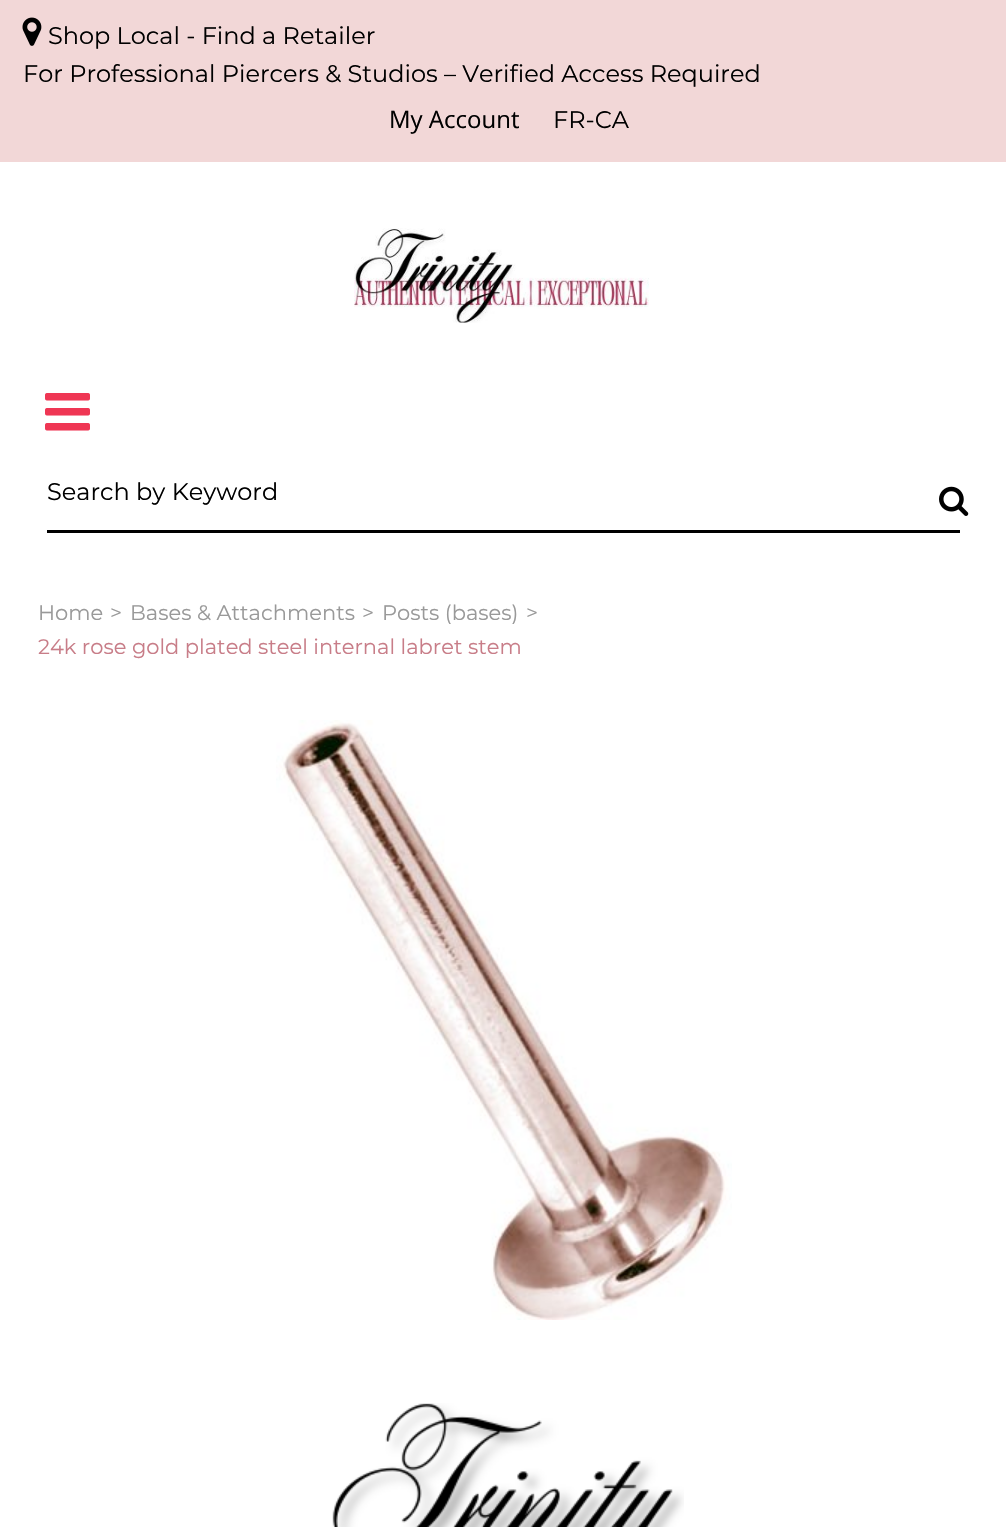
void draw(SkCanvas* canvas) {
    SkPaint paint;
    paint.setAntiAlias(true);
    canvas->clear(0xFFFFFFFF);
    paint.setColor(0xFFF2D7D7);
    canvas->drawRect(SkRect::MakeXYWH(0, 0, 1006, 162), paint);
    canvas->drawImageRect(SkImages::DeferredFromEncodedData(SkData::MakeFromFileName("img1.png")), SkRect::MakeXYWH(22, 17, 20, 29), SkSamplingOptions());
    SkFont font1(fontMgr->matchFamilyStyle("Montserrat", SkFontStyle::Normal()), 24);
    font1.setSubpixel(true);
    paint.setColor(0xFF000000);
    canvas->drawString("Shop Local - Find a Retailer", 48, 44, font1, paint);
    canvas->drawString("For Professional Piercers & Studios – Verified Access Required", 23, 82, font1, paint);
    SkFont font2(fontMgr->matchFamilyStyle("Open Sans", SkFontStyle::Normal()), 24);
    font2.setSubpixel(true);
    canvas->drawString("My Account", 389, 128, font2, paint);
    canvas->drawString("FR-CA", 553, 128, font1, paint);
    canvas->drawImageRect(SkImages::DeferredFromEncodedData(SkData::MakeFromFileName("img2.png")), SkRect::MakeXYWH(354, 228, 295, 95), SkSamplingOptions());
    canvas->drawImageRect(SkImages::DeferredFromEncodedData(SkData::MakeFromFileName("img3.png")), SkRect::MakeXYWH(45, 393, 45, 38), SkSamplingOptions());
    canvas->drawRect(SkRect::MakeXYWH(47, 530, 913, 3), paint);
    canvas->drawString("Search by Keyword", 47, 500, font1, paint);
    canvas->drawImageRect(SkImages::DeferredFromEncodedData(SkData::MakeFromFileName("img4.png")), SkRect::MakeXYWH(939, 486, 30, 30), SkSamplingOptions());
    SkFont font3(fontMgr->matchFamilyStyle("Montserrat", SkFontStyle::Normal()), 21);
    font3.setSubpixel(true);
    paint.setColor(0xFF999999);
    canvas->drawString("Home", 38, 620, font3, paint);
    canvas->drawString(">", 110, 620, font3, paint);
    canvas->drawString("Bases & Attachments", 130, 620, font3, paint);
    canvas->drawString(">", 362, 620, font3, paint);
    canvas->drawString("Posts (bases)", 382, 620, font3, paint);
    canvas->drawString(">", 526, 620, font3, paint);
    paint.setColor(0xFFC87D88);
    canvas->drawString("24k rose gold plated steel internal labret stem", 38, 654, font3, paint);
    canvas->drawImageRect(SkImages::DeferredFromEncodedData(SkData::MakeFromFileName("img5.png")), SkRect::MakeXYWH(276, 720, 456, 600), SkSamplingOptions());
    canvas->drawImageRect(SkImages::DeferredFromEncodedData(SkData::MakeFromFileName("img6.png")), SkRect::MakeXYWH(332, 1403, 352, 124), SkSamplingOptions());
}
